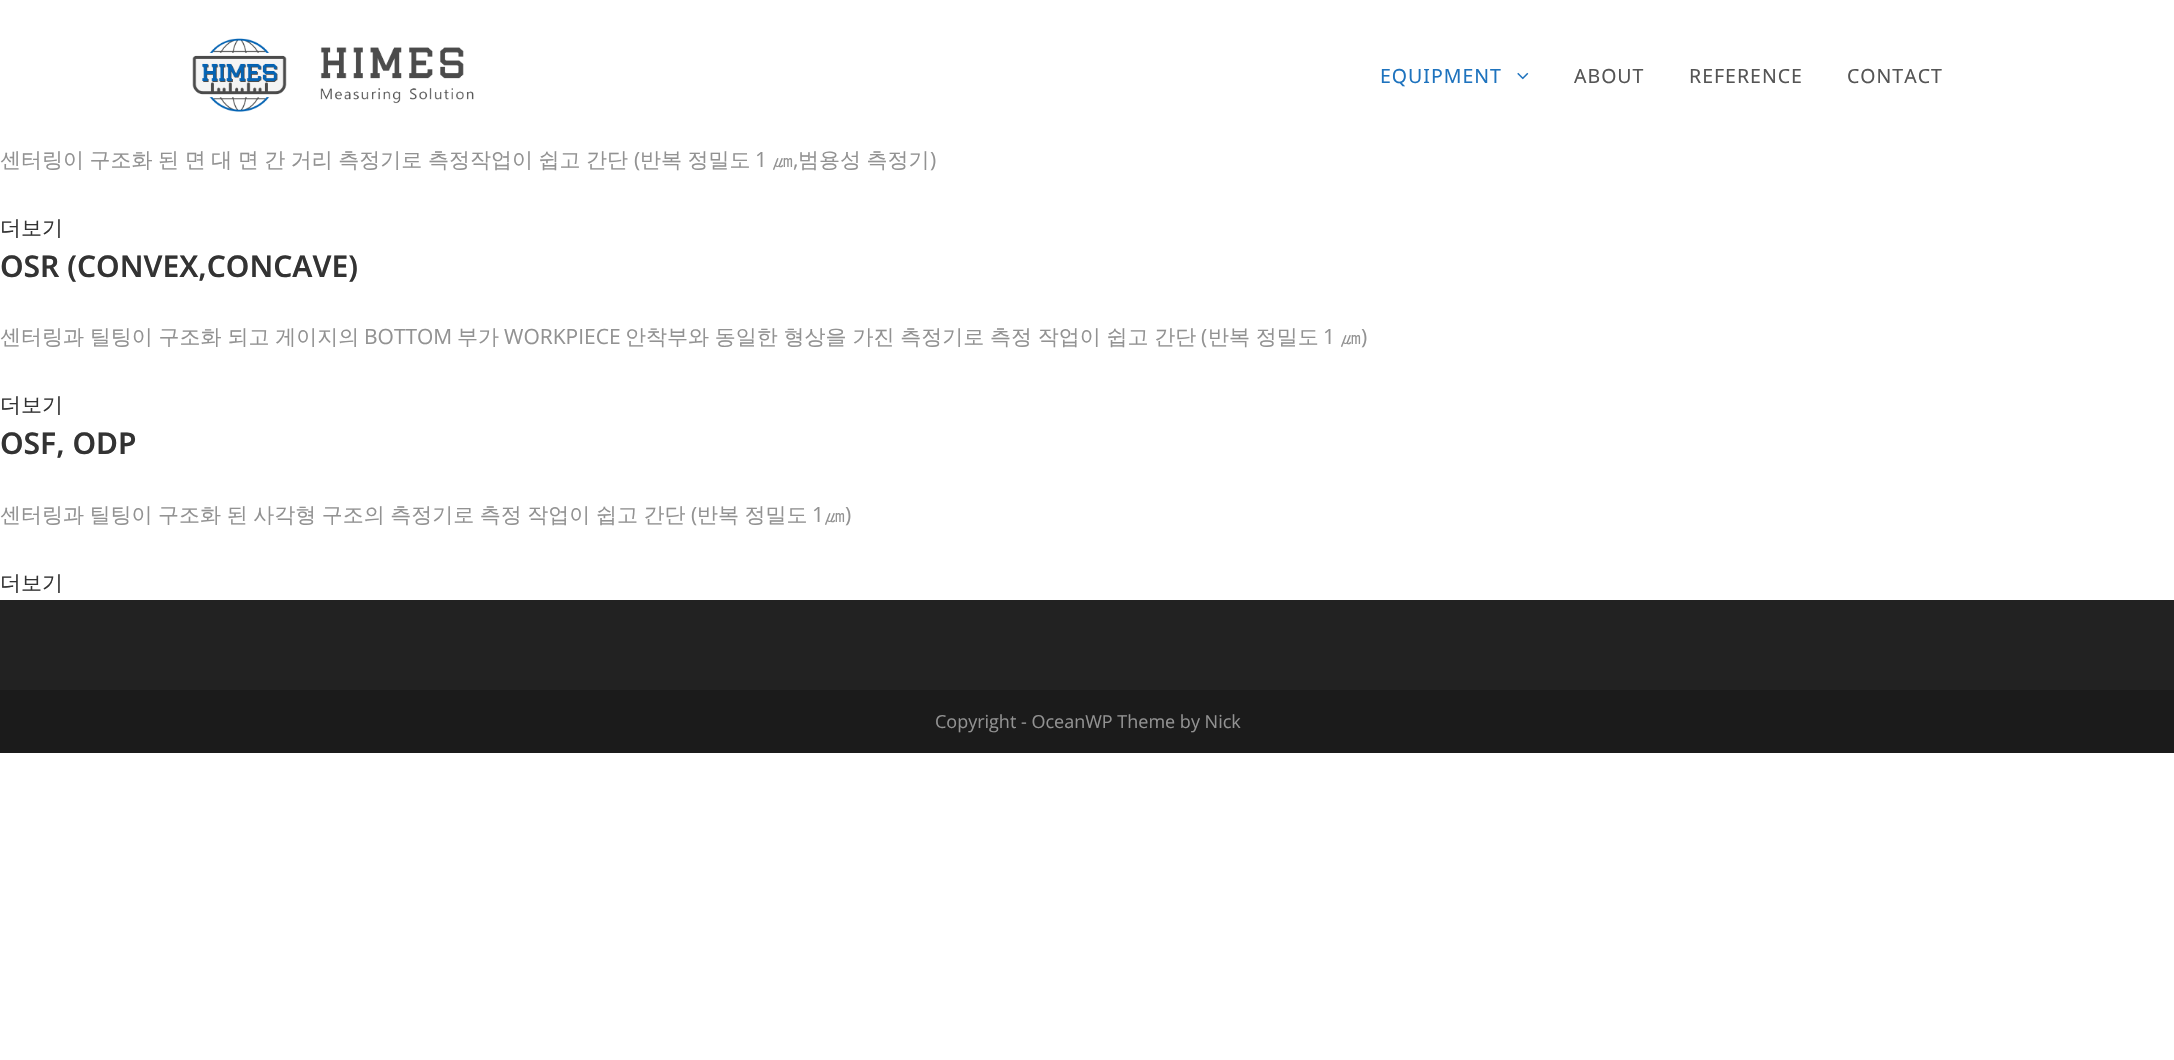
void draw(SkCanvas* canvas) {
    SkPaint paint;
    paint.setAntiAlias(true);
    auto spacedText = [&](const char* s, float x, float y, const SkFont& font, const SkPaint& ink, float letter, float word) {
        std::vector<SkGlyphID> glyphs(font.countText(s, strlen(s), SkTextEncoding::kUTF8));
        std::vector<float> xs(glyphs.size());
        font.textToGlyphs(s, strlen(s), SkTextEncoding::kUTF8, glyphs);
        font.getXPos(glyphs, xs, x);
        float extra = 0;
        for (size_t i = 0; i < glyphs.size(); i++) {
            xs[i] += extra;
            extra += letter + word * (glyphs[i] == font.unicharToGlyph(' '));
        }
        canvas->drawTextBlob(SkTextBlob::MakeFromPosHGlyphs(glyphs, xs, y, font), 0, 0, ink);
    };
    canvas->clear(0xFFFFFFFF);
    canvas->drawImageRect(SkImages::DeferredFromEncodedData(SkData::MakeFromFileName("img1.png")), SkRect::MakeXYWH(192, 38, 282, 74), SkSamplingOptions());
    SkFont font1(fontMgr->matchFamilyStyle("Noto Sans", SkFontStyle::Normal()), 19.5f);
    font1.setSubpixel(true);
    paint.setColor(0xFF1E73BE);
    spacedText("EQUIPMENT", 1380, 83, font1, paint, 1, 0);
    canvas->drawImageRect(SkImages::DeferredFromEncodedData(SkData::MakeFromFileName("img2.png")), SkRect::MakeXYWH(1517, 72, 12, 8), SkSamplingOptions());
    paint.setColor(0xFF555555);
    spacedText("ABOUT", 1574, 83, font1, paint, 1, 0);
    spacedText("REFERENCE", 1689, 83, font1, paint, 1, 0);
    spacedText("CONTACT", 1847, 83, font1, paint, 1, 0);
    SkFont font2(fontMgr->matchFamilyStyle("WenQuanYi Zen Hei", SkFontStyle(500, SkFontStyle::kNormal_Width, SkFontStyle::kUpright_Slant)), 21);
    font2.setSubpixel(true);
    paint.setColor(0xFF929292);
    spacedText("센터링이 구조화 된 면 대 면 간 거리 측정기로 측정작업이 쉽고 간단", 0, 167, font2, paint, 0, -0.75f);
    SkFont font3(fontMgr->matchFamilyStyle("Open Sans", SkFontStyle::Normal()), 21);
    font3.setSubpixel(true);
    canvas->drawString("(", 634, 167, font3, paint);
    spacedText("반복 정밀도", 640, 167, font2, paint, 0, -0.75f);
    canvas->drawString("1", 755, 167, font3, paint);
    canvas->drawString("㎛", 772, 167, font2, paint);
    canvas->drawString(",", 793, 167, font3, paint);
    spacedText("범용성 측정기", 798, 167, font2, paint, 0, -0.75f);
    canvas->drawString(")", 930, 167, font3, paint);
    paint.setColor(0xFF333333);
    canvas->drawString("더보기", 0, 235, font2, paint);
    SkFont font4(fontMgr->matchFamilyStyle("Noto Sans", SkFontStyle(600, SkFontStyle::kNormal_Width, SkFontStyle::kUpright_Slant)), 30);
    font4.setSubpixel(true);
    canvas->drawString("OSR (CONVEX,CONCAVE)", 0, 277, font4, paint);
    paint.setColor(0xFF929292);
    spacedText("센터링과 틸팅이 구조화 되고 게이지의", 0, 344, font2, paint, 0, -0.5f);
    canvas->drawString("BOTTOM", 364, 344, font3, paint);
    canvas->drawString("부가", 457, 344, font2, paint);
    canvas->drawString("WORKPIECE", 504, 344, font3, paint);
    spacedText("안착부와 동일한 형상을 가진 측정기로 측정 작업이 쉽고 간단", 625, 344, font2, paint, 0, -0.5f);
    canvas->drawString("(", 1201, 344, font3, paint);
    spacedText("반복 정밀도", 1208, 344, font2, paint, 0, -0.5f);
    canvas->drawString("1", 1323, 344, font3, paint);
    canvas->drawString("㎛", 1340, 344, font2, paint);
    canvas->drawString(")", 1361, 344, font3, paint);
    paint.setColor(0xFF333333);
    canvas->drawString("더보기", 0, 412, font2, paint);
    canvas->drawString("OSF, ODP", 0, 454, font4, paint);
    paint.setColor(0xFF929292);
    spacedText("센터링과 틸팅이 구조화 된 사각형 구조의 측정기로 측정 작업이 쉽고 간단", 0, 522, font2, paint, 0, -0.75f);
    canvas->drawString("(", 691, 522, font3, paint);
    spacedText("반복 정밀도", 697, 522, font2, paint, 0, -0.75f);
    canvas->drawString("1", 812, 522, font3, paint);
    canvas->drawString("㎛", 824, 522, font2, paint);
    canvas->drawString(")", 845, 522, font3, paint);
    paint.setColor(0xFF333333);
    canvas->drawString("더보기", 0, 590, font2, paint);
    paint.setColor(0xFF222222);
    canvas->drawRect(SkRect::MakeXYWH(0, 600, 2174, 90), paint);
    paint.setColor(0xFF1B1B1B);
    canvas->drawRect(SkRect::MakeXYWH(0, 690, 2174, 63), paint);
    SkFont font5(fontMgr->matchFamilyStyle("Open Sans", SkFontStyle::Normal()), 18);
    font5.setSubpixel(true);
    paint.setColor(0xFF929292);
    canvas->drawString("Copyright - OceanWP Theme by Nick", 935, 728, font5, paint);
}
